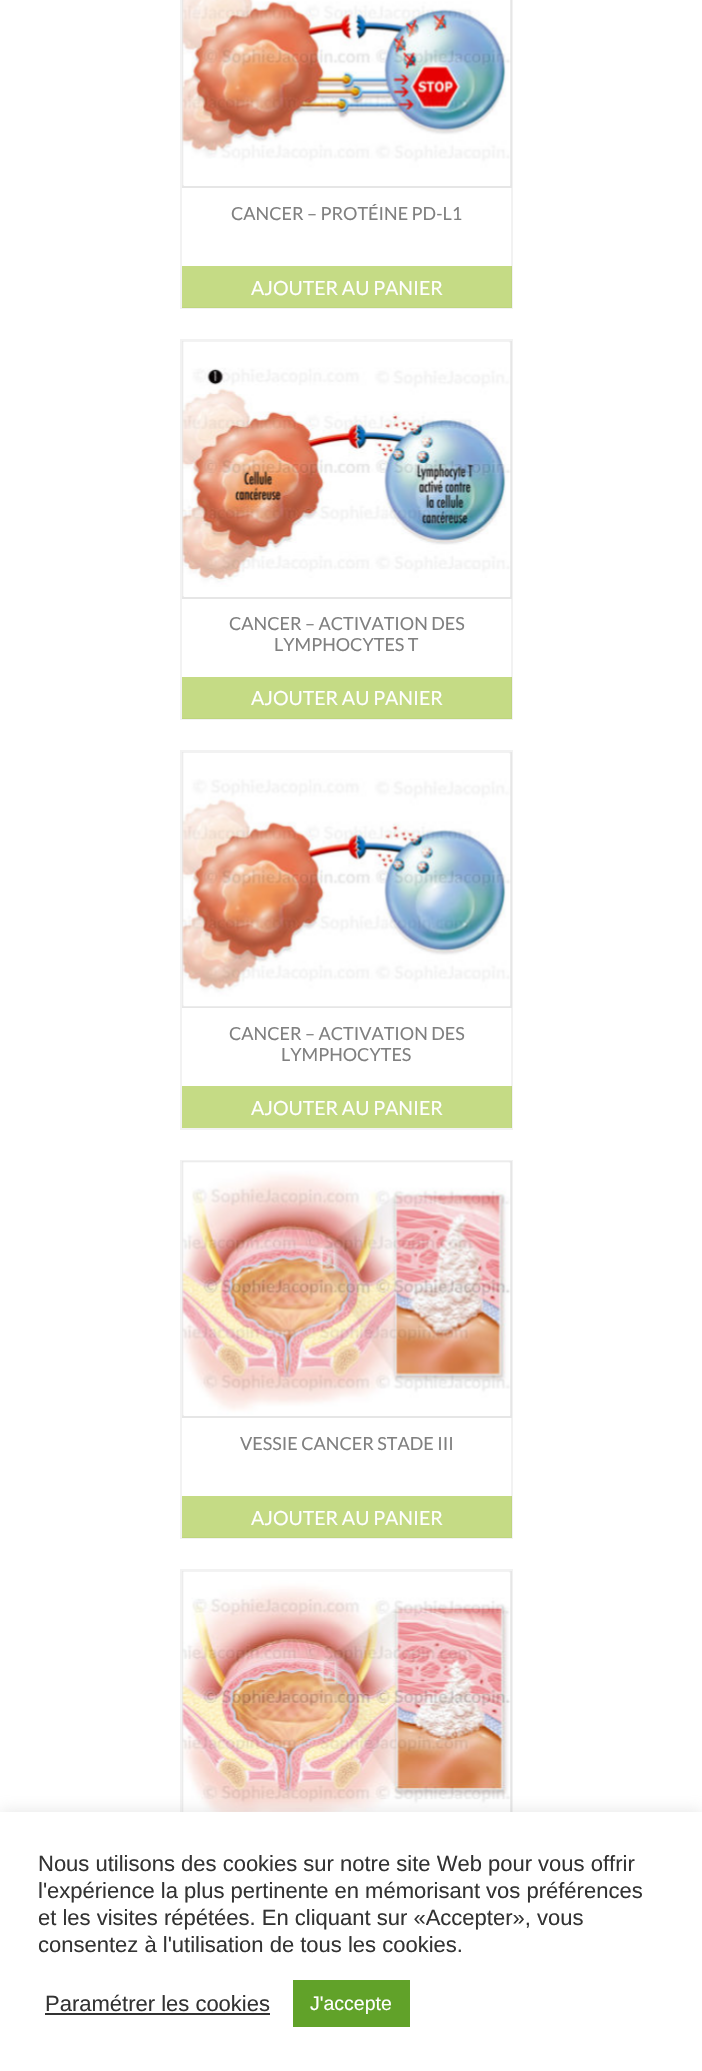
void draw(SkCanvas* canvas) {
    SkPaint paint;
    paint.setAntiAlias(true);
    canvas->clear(0xFFFFFFFF);
    paint.setStyle(SkPaint::kStroke_Style);
    paint.setStrokeWidth(2);
    paint.setColor(0xFFF2F2F2);
    canvas->drawRect(SkRect::MakeXYWH(181, -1, 331, 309), paint);
    paint.setColor(0xFFE6E6E6);
    canvas->drawRect(SkRect::MakeXYWH(183, -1, 328, 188), paint);
    canvas->drawImageRect(SkImages::DeferredFromEncodedData(SkData::MakeFromFileName("img1.png")), SkRect::MakeXYWH(182, 0, 329, 186), SkSamplingOptions());
    SkFont font1(fontMgr->matchFamilyStyle("Lato", SkFontStyle::Normal()), 18);
    font1.setSubpixel(true);
    paint.setStyle(SkPaint::kFill_Style);
    paint.setColor(0xFF808080);
    canvas->drawString("CANCER – PROTÉINE PD-L1", 231, 220, font1, paint);
    paint.setColor(0x808CB80B);
    canvas->drawRect(SkRect::MakeXYWH(182, 266, 330, 42), paint);
    SkFont font2(fontMgr->matchFamilyStyle("Lato", SkFontStyle::Normal()), 19.5f);
    font2.setSubpixel(true);
    paint.setColor(0xFFFFFFFF);
    canvas->drawString("AJOUTER AU PANIER", 251, 295, font2, paint);
    paint.setStyle(SkPaint::kStroke_Style);
    paint.setColor(0xFFF2F2F2);
    canvas->drawRect(SkRect::MakeXYWH(181, 340, 331, 379), paint);
    paint.setColor(0xFFE6E6E6);
    canvas->drawRect(SkRect::MakeXYWH(183, 342, 328, 256), paint);
    canvas->drawImageRect(SkImages::DeferredFromEncodedData(SkData::MakeFromFileName("img2.png")), SkRect::MakeXYWH(182, 341, 329, 256), SkSamplingOptions());
    paint.setStyle(SkPaint::kFill_Style);
    paint.setColor(0xFF808080);
    canvas->drawString("CANCER – ACTIVATION DES", 229, 630, font1, paint);
    canvas->drawString("LYMPHOCYTES T", 274, 651, font1, paint);
    paint.setColor(0x808CB80B);
    canvas->drawRect(SkRect::MakeXYWH(182, 677, 330, 42), paint);
    paint.setColor(0xFFFFFFFF);
    canvas->drawString("AJOUTER AU PANIER", 251, 705, font2, paint);
    paint.setStyle(SkPaint::kStroke_Style);
    paint.setColor(0xFFF2F2F2);
    canvas->drawRect(SkRect::MakeXYWH(181, 751, 331, 378), paint);
    paint.setColor(0xFFE6E6E6);
    canvas->drawRect(SkRect::MakeXYWH(183, 753, 328, 254), paint);
    canvas->drawImageRect(SkImages::DeferredFromEncodedData(SkData::MakeFromFileName("img3.png")), SkRect::MakeXYWH(182, 752, 329, 255), SkSamplingOptions());
    paint.setStyle(SkPaint::kFill_Style);
    paint.setColor(0xFF808080);
    canvas->drawString("CANCER – ACTIVATION DES", 229, 1040, font1, paint);
    canvas->drawString("LYMPHOCYTES", 281, 1061, font1, paint);
    paint.setColor(0x808CB80B);
    canvas->drawRect(SkRect::MakeXYWH(182, 1086, 330, 42), paint);
    paint.setColor(0xFFFFFFFF);
    canvas->drawString("AJOUTER AU PANIER", 251, 1115, font2, paint);
    paint.setStyle(SkPaint::kStroke_Style);
    paint.setColor(0xFFF2F2F2);
    canvas->drawRect(SkRect::MakeXYWH(181, 1161, 331, 377), paint);
    paint.setColor(0xFFE6E6E6);
    canvas->drawRect(SkRect::MakeXYWH(183, 1162, 328, 255), paint);
    canvas->drawImageRect(SkImages::DeferredFromEncodedData(SkData::MakeFromFileName("img4.png")), SkRect::MakeXYWH(182, 1161, 329, 255), SkSamplingOptions());
    paint.setStyle(SkPaint::kFill_Style);
    paint.setColor(0xFF808080);
    canvas->drawString("VESSIE CANCER STADE III", 240, 1450, font1, paint);
    paint.setColor(0x808CB80B);
    canvas->drawRect(SkRect::MakeXYWH(182, 1496, 330, 42), paint);
    paint.setColor(0xFFFFFFFF);
    canvas->drawString("AJOUTER AU PANIER", 251, 1525, font2, paint);
    paint.setStyle(SkPaint::kStroke_Style);
    paint.setColor(0xFFF2F2F2);
    canvas->drawRect(SkRect::MakeXYWH(181, 1570, 331, 379), paint);
    paint.setColor(0xFFE6E6E6);
    canvas->drawRect(SkRect::MakeXYWH(183, 1572, 328, 256), paint);
    canvas->drawImageRect(SkImages::DeferredFromEncodedData(SkData::MakeFromFileName("img5.png")), SkRect::MakeXYWH(182, 1571, 329, 241), SkSamplingOptions());
    paint.setStyle(SkPaint::kFill_Style);
    paint.setColor(0x4DACABAB);
    paint.setMaskFilter(SkMaskFilter::MakeBlur(kNormal_SkBlurStyle, 7.5f));
    canvas->drawRect(SkRect::MakeXYWH(0, 1811, 702, 259), paint);
    paint.setMaskFilter(nullptr);
    paint.setColor(0xFFFFFFFF);
    canvas->drawRect(SkRect::MakeXYWH(0, 1812, 702, 259), paint);
    SkFont font3(fontMgr->matchFamilyStyle("Liberation Sans", SkFontStyle::Normal()), 22);
    font3.setSubpixel(true);
    paint.setColor(0xFF333333);
    canvas->drawString("Nous utilisons des cookies sur notre site Web pour vous offrir", 38, 1871, font3, paint);
    canvas->drawString("l'expérience la plus pertinente en mémorisant vos préférences", 38, 1898, font3, paint);
    canvas->drawString("et les visites répétées. En cliquant sur «Accepter», vous", 38, 1925, font3, paint);
    canvas->drawString("consentez à l'utilisation de tous les cookies.", 38, 1952, font3, paint);
    canvas->drawString("Paramétrer les cookies", 45, 2011, font3, paint);
    canvas->drawRect(SkRect::MakeXYWH(45, 2013, 225, 2), paint);
    paint.setColor(0xFF61A229);
    canvas->drawRect(SkRect::MakeXYWH(293, 1980, 117, 47), paint);
    SkFont font4(fontMgr->matchFamilyStyle("Liberation Sans", SkFontStyle::Normal()), 19.5f);
    font4.setSubpixel(true);
    paint.setColor(0xFFFFFFFF);
    canvas->drawString("J'accepte", 310, 2010, font4, paint);
}
